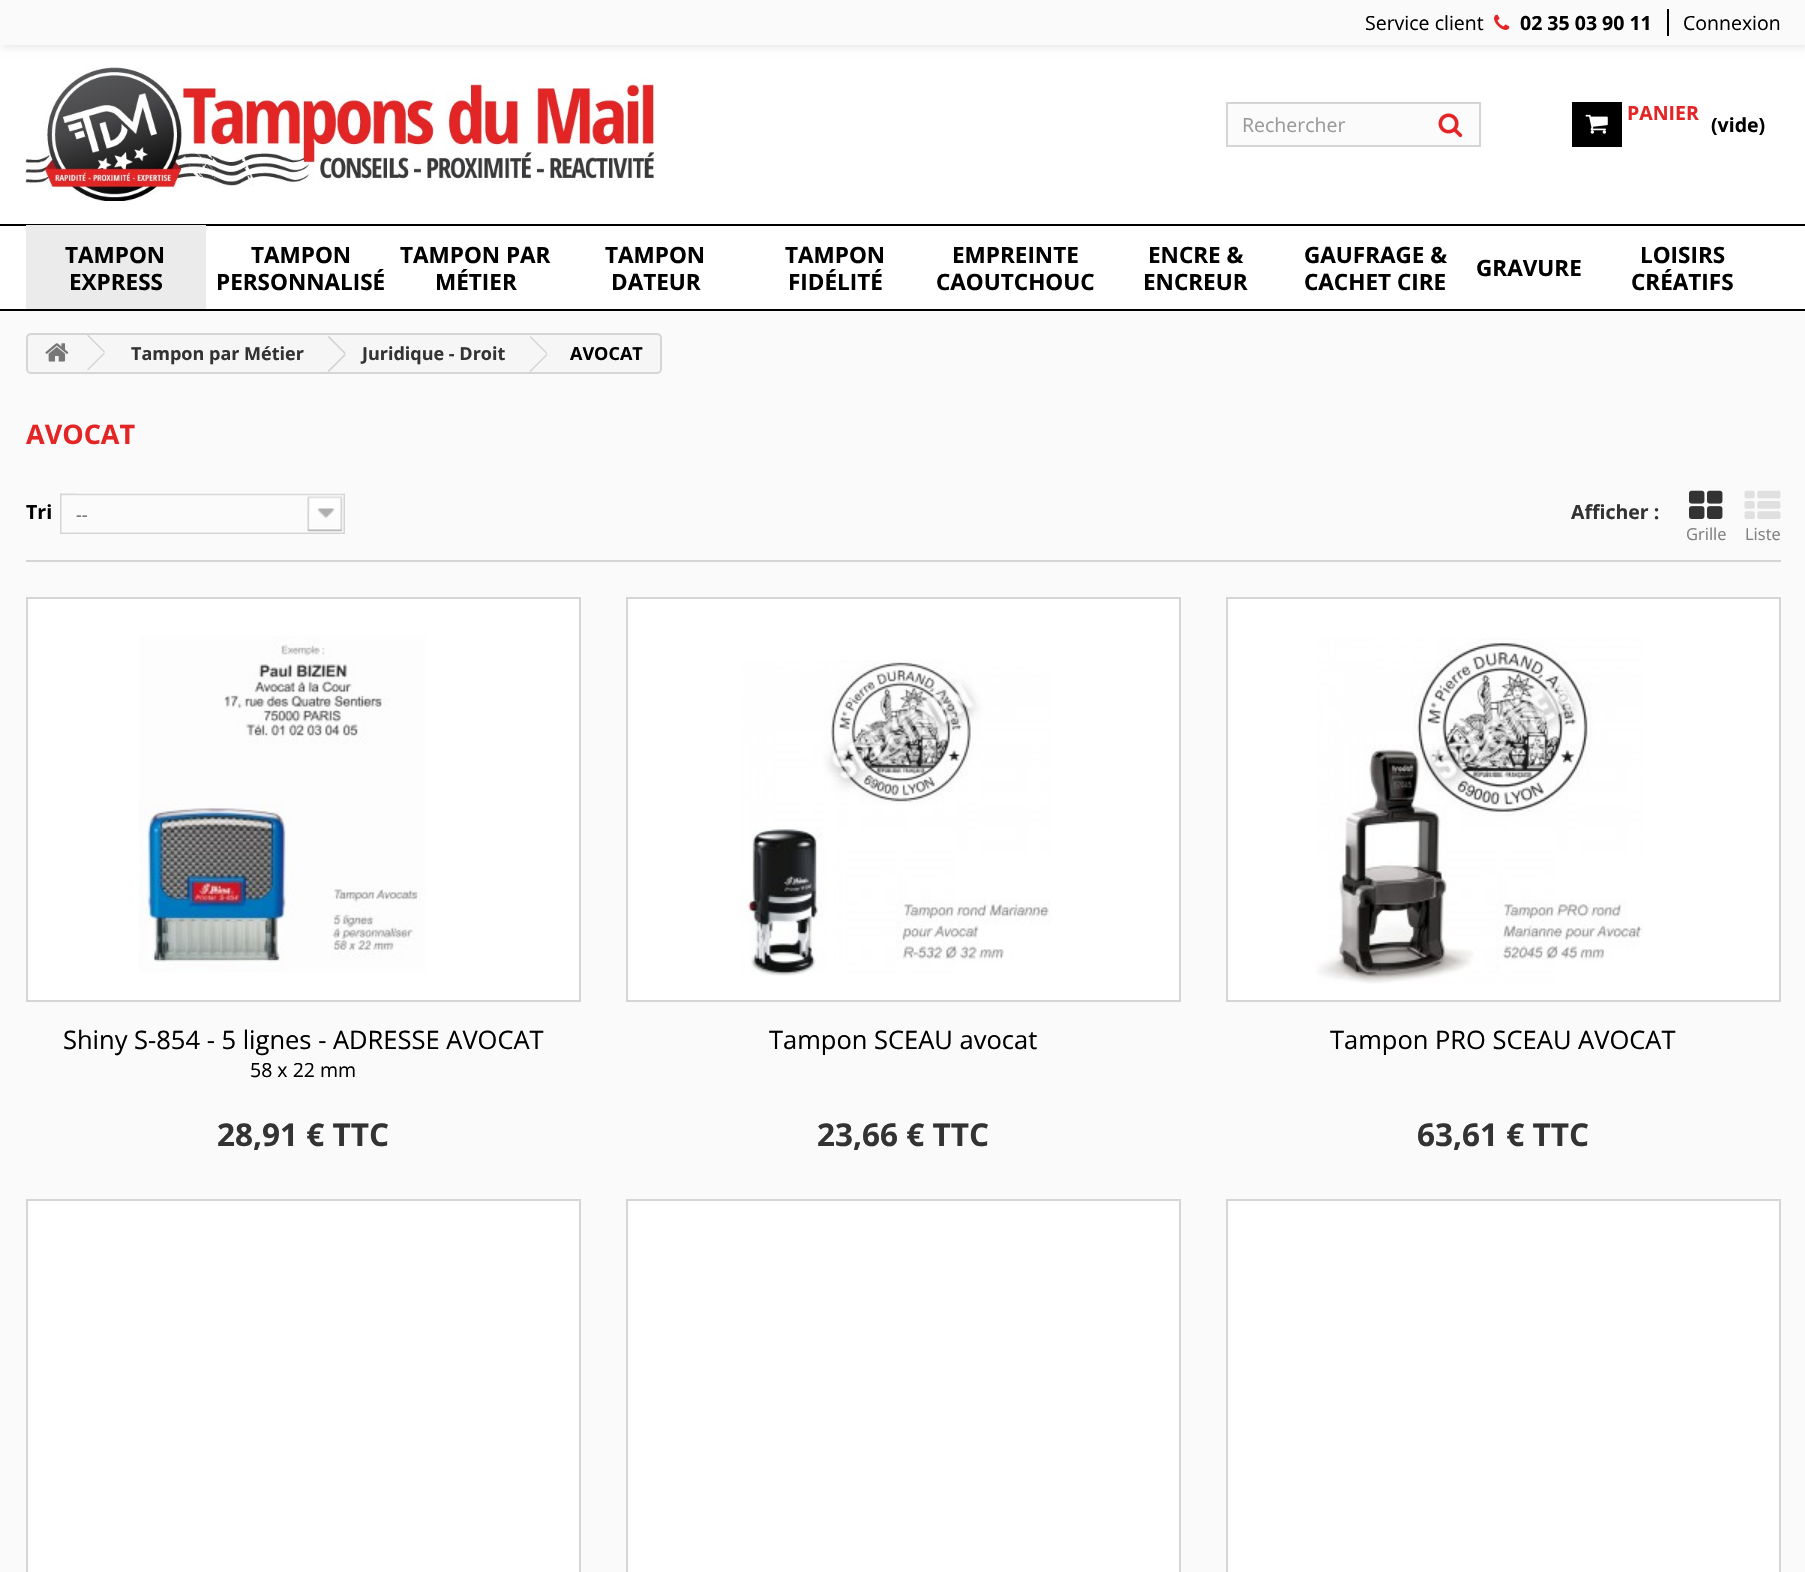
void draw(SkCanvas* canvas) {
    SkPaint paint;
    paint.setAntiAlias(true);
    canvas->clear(0xFFFFFFFF);
    paint.setColor(0x1A000000);
    paint.setMaskFilter(SkMaskFilter::MakeBlur(kNormal_SkBlurStyle, 4));
    canvas->drawRect(SkRect::MakeXYWH(2, 2, 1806, 45), paint);
    paint.setMaskFilter(nullptr);
    paint.setColor(0xFFFAFAFA);
    canvas->drawRect(SkRect::MakeXYWH(0, 0, 1805, 45), paint);
    SkFont font1(fontMgr->matchFamilyStyle("Open Sans", SkFontStyle::Normal()), 19.5f);
    font1.setSubpixel(true);
    paint.setColor(0xFF000000);
    canvas->drawString("Service client", 1365, 30, font1, paint);
    canvas->drawImageRect(SkImages::DeferredFromEncodedData(SkData::MakeFromFileName("img1.png")), SkRect::MakeXYWH(1494, 14, 16, 16), SkSamplingOptions());
    SkFont font2(fontMgr->matchFamilyStyle("Open Sans", SkFontStyle::Bold()), 19.5f);
    font2.setSubpixel(true);
    canvas->drawString("02 35 03 90 11", 1520, 30, font2, paint);
    canvas->drawRect(SkRect::MakeXYWH(1667, 9, 2, 27), paint);
    canvas->drawString("Connexion", 1683, 30, font1, paint);
    canvas->drawImageRect(SkImages::DeferredFromEncodedData(SkData::MakeFromFileName("img2.png")), SkRect::MakeXYWH(25, 67, 629, 134), SkSamplingOptions());
    paint.setColor(0xFFFBFBFB);
    canvas->drawRect(SkRect::MakeXYWH(1227, 103, 253, 43), paint);
    paint.setStyle(SkPaint::kStroke_Style);
    paint.setStrokeWidth(2);
    paint.setColor(0xFFD6D4D4);
    canvas->drawRect(SkRect::MakeXYWH(1227, 103, 253, 43), paint);
    paint.setStyle(SkPaint::kFill_Style);
    paint.setColor(0xFF999999);
    canvas->drawString("Rechercher", 1242, 132, font1, paint);
    canvas->drawImageRect(SkImages::DeferredFromEncodedData(SkData::MakeFromFileName("img3.png")), SkRect::MakeXYWH(1438, 113, 25, 25), SkSamplingOptions());
    paint.setColor(0xFF000000);
    canvas->drawRect(SkRect::MakeXYWH(1572, 102, 50, 45), paint);
    canvas->drawImageRect(SkImages::DeferredFromEncodedData(SkData::MakeFromFileName("img4.png")), SkRect::MakeXYWH(1585, 114, 23, 20), SkSamplingOptions());
    paint.setColor(0xFFE42526);
    canvas->drawString("PANIER", 1627, 120, font2, paint);
    paint.setColor(0xFF000000);
    canvas->drawString("(vide)", 1711, 132, font2, paint);
    canvas->drawRect(SkRect::MakeXYWH(0, 224, 1805, 2), paint);
    canvas->drawRect(SkRect::MakeXYWH(0, 309, 1805, 2), paint);
    paint.setColor(0xFFEBEBEB);
    canvas->drawRect(SkRect::MakeXYWH(26, 225, 180, 84), paint);
    SkFont font3(fontMgr->matchFamilyStyle("Open Sans", SkFontStyle::Bold()), 22.5f);
    font3.setSubpixel(true);
    paint.setColor(0xFF000000);
    canvas->drawString("TAMPON", 65, 263, font3, paint);
    canvas->drawString("EXPRESS", 69, 290, font3, paint);
    canvas->drawString("TAMPON", 251, 263, font3, paint);
    canvas->drawString("PERSONNALISÉ", 216, 290, font3, paint);
    canvas->drawString("TAMPON PAR", 400, 263, font3, paint);
    canvas->drawString("MÉTIER", 435, 290, font3, paint);
    canvas->drawString("TAMPON", 605, 263, font3, paint);
    canvas->drawString("DATEUR", 611, 290, font3, paint);
    canvas->drawString("TAMPON", 785, 263, font3, paint);
    canvas->drawString("FIDÉLITÉ", 788, 290, font3, paint);
    canvas->drawString("EMPREINTE", 952, 263, font3, paint);
    canvas->drawString("CAOUTCHOUC", 936, 290, font3, paint);
    canvas->drawString("ENCRE &", 1148, 263, font3, paint);
    canvas->drawString("ENCREUR", 1143, 290, font3, paint);
    canvas->drawString("GAUFRAGE &", 1304, 263, font3, paint);
    canvas->drawString("CACHET CIRE", 1304, 290, font3, paint);
    canvas->drawString("GRAVURE", 1476, 276, font3, paint);
    canvas->drawString("LOISIRS", 1640, 263, font3, paint);
    canvas->drawString("CRÉATIFS", 1631, 290, font3, paint);
    paint.setColor(0xFFFAFAFA);
    canvas->drawRect(SkRect::MakeXYWH(0, 311, 1805, 1261), paint);
    paint.setColor(0xFFF6F6F6);
    canvas->drawRoundRect(SkRect::MakeXYWH(27, 334, 634, 39), 4, 4, paint);
    paint.setStyle(SkPaint::kStroke_Style);
    paint.setColor(0xFFD6D4D4);
    canvas->drawRoundRect(SkRect::MakeXYWH(27, 334, 634, 39), 4, 4, paint);
    canvas->drawImageRect(SkImages::DeferredFromEncodedData(SkData::MakeFromFileName("img5.png")), SkRect::MakeXYWH(45, 343, 24, 19), SkSamplingOptions());
    paint.setStyle(SkPaint::kFill_Style);
    canvas->drawPath(SkPathBuilder().moveTo(88, 334.5f).lineTo(105, 351.5f).lineTo(104, 352.5f).lineTo(87, 335.5f).close().detach(), paint);
    canvas->drawPath(SkPathBuilder().moveTo(104, 352.5f).lineTo(105, 353.5f).lineTo(88, 370.5f).lineTo(87, 369.5f).close().detach(), paint);
    SkFont font4(fontMgr->matchFamilyStyle("Open Sans", SkFontStyle::Bold()), 18);
    font4.setSubpixel(true);
    paint.setColor(0xFF333333);
    canvas->drawString("Tampon par Métier", 131, 360, font4, paint);
    paint.setColor(0xFFD6D4D4);
    canvas->drawPath(SkPathBuilder().moveTo(329, 336).lineTo(346, 353).lineTo(344.5f, 354).lineTo(327.5f, 337).close().moveTo(344.5f, 354).lineTo(346, 355).lineTo(329, 372).lineTo(327.5f, 371).close().detach(), paint);
    paint.setColor(0xFF333333);
    canvas->drawString("Juridique - Droit", 362, 360, font4, paint);
    paint.setColor(0xFFD6D4D4);
    canvas->drawPath(SkPathBuilder().moveTo(530.5f, 336).lineTo(547.5f, 353).lineTo(546.5f, 354).lineTo(529.5f, 337).close().moveTo(546.5f, 354).lineTo(547.5f, 355).lineTo(530.5f, 372).lineTo(529.5f, 371).close().detach(), paint);
    paint.setColor(0xFF000000);
    canvas->drawString("AVOCAT", 570, 360, font4, paint);
    SkFont font5(fontMgr->matchFamilyStyle("Open Sans", SkFontStyle::Bold()), 27);
    font5.setSubpixel(true);
    paint.setColor(0xFFE42526);
    canvas->drawString("AVOCAT", 26, 444, font5, paint);
    paint.setColor(0xFFD6D4D4);
    canvas->drawRect(SkRect::MakeXYWH(26, 560, 1755, 2), paint);
    paint.setColor(0xFF000000);
    canvas->drawString("Tri", 26, 519, font2, paint);
    canvas->drawImageRect(SkImages::DeferredFromEncodedData(SkData::MakeFromFileName("img6.png")), SkRect::MakeXYWH(60, 493, 16, 41), SkSamplingOptions());
    canvas->drawImageRect(SkImages::DeferredFromEncodedData(SkData::MakeFromFileName("img7.png")), SkRect::MakeXYWH(75, 493, 270, 41), SkSamplingOptions());
    SkFont font6(fontMgr->matchFamilyStyle("Open Sans", SkFontStyle::Normal()), 18);
    font6.setSubpixel(true);
    paint.setColor(0xFF666666);
    canvas->drawString("--", 76, 521, font6, paint);
    paint.setColor(0xFF333333);
    canvas->drawString("Afficher :", 1571, 519, font2, paint);
    canvas->drawImageRect(SkImages::DeferredFromEncodedData(SkData::MakeFromFileName("img8.png")), SkRect::MakeXYWH(1689, 490, 34, 29), SkSamplingOptions());
    SkFont font7(fontMgr->matchFamilyStyle("Open Sans", SkFontStyle::Normal()), 16.5f);
    font7.setSubpixel(true);
    paint.setColor(0xFF808080);
    canvas->drawString("Grille", 1686, 540, font7, paint);
    canvas->drawImageRect(SkImages::DeferredFromEncodedData(SkData::MakeFromFileName("img9.png")), SkRect::MakeXYWH(1744, 490, 37, 29), SkSamplingOptions());
    canvas->drawString("Liste", 1745, 540, font7, paint);
    paint.setColor(0xFFFFFFFF);
    canvas->drawRect(SkRect::MakeXYWH(27, 598, 553, 403), paint);
    paint.setStyle(SkPaint::kStroke_Style);
    paint.setColor(0xFFD6D4D4);
    canvas->drawRect(SkRect::MakeXYWH(27, 598, 553, 403), paint);
    canvas->drawImageRect(SkImages::DeferredFromEncodedData(SkData::MakeFromFileName("img10.png")), SkRect::MakeXYWH(139, 636, 287, 336), SkSamplingOptions());
    SkFont font8(fontMgr->matchFamilyStyle("Open Sans", SkFontStyle::Normal()), 25.5f);
    font8.setSubpixel(true);
    paint.setStyle(SkPaint::kFill_Style);
    paint.setColor(0xFF000000);
    canvas->drawString("Shiny S-854 - 5 lignes - ADRESSE AVOCAT", 63, 1049, font8, paint);
    canvas->drawString("58 x 22 mm", 250, 1077, font1, paint);
    SkFont font9(fontMgr->matchFamilyStyle("Open Sans", SkFontStyle::Bold()), 31.5f);
    font9.setSubpixel(true);
    paint.setColor(0xFF333333);
    canvas->drawString("28,91 € TTC", 217, 1146, font9, paint);
    paint.setColor(0xFFFFFFFF);
    canvas->drawRect(SkRect::MakeXYWH(627, 598, 553, 403), paint);
    paint.setStyle(SkPaint::kStroke_Style);
    paint.setColor(0xFFD6D4D4);
    canvas->drawRect(SkRect::MakeXYWH(627, 598, 553, 403), paint);
    canvas->drawImageRect(SkImages::DeferredFromEncodedData(SkData::MakeFromFileName("img11.png")), SkRect::MakeXYWH(740, 660, 311, 316), SkSamplingOptions());
    paint.setStyle(SkPaint::kFill_Style);
    paint.setColor(0xFF000000);
    canvas->drawString("Tampon SCEAU avocat", 769, 1049, font8, paint);
    paint.setColor(0xFF333333);
    canvas->drawString("23,66 € TTC", 817, 1146, font9, paint);
    paint.setColor(0xFFFFFFFF);
    canvas->drawRect(SkRect::MakeXYWH(1227, 598, 553, 403), paint);
    paint.setStyle(SkPaint::kStroke_Style);
    paint.setColor(0xFFD6D4D4);
    canvas->drawRect(SkRect::MakeXYWH(1227, 598, 553, 403), paint);
    canvas->drawImageRect(SkImages::DeferredFromEncodedData(SkData::MakeFromFileName("img12.png")), SkRect::MakeXYWH(1316, 638, 328, 346), SkSamplingOptions());
    paint.setStyle(SkPaint::kFill_Style);
    paint.setColor(0xFF000000);
    canvas->drawString("Tampon PRO SCEAU AVOCAT", 1330, 1049, font8, paint);
    paint.setColor(0xFF333333);
    canvas->drawString("63,61 € TTC", 1417, 1146, font9, paint);
    paint.setColor(0xFFFFFFFF);
    canvas->drawRect(SkRect::MakeXYWH(27, 1200, 553, 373), paint);
    paint.setStyle(SkPaint::kStroke_Style);
    paint.setColor(0xFFD6D4D4);
    canvas->drawRect(SkRect::MakeXYWH(27, 1200, 553, 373), paint);
    paint.setStyle(SkPaint::kFill_Style);
    paint.setColor(0xFFFFFFFF);
    canvas->drawRect(SkRect::MakeXYWH(627, 1200, 553, 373), paint);
    paint.setStyle(SkPaint::kStroke_Style);
    paint.setColor(0xFFD6D4D4);
    canvas->drawRect(SkRect::MakeXYWH(627, 1200, 553, 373), paint);
    paint.setStyle(SkPaint::kFill_Style);
    paint.setColor(0xFFFFFFFF);
    canvas->drawRect(SkRect::MakeXYWH(1227, 1200, 553, 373), paint);
    paint.setStyle(SkPaint::kStroke_Style);
    paint.setColor(0xFFD6D4D4);
    canvas->drawRect(SkRect::MakeXYWH(1227, 1200, 553, 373), paint);
}
